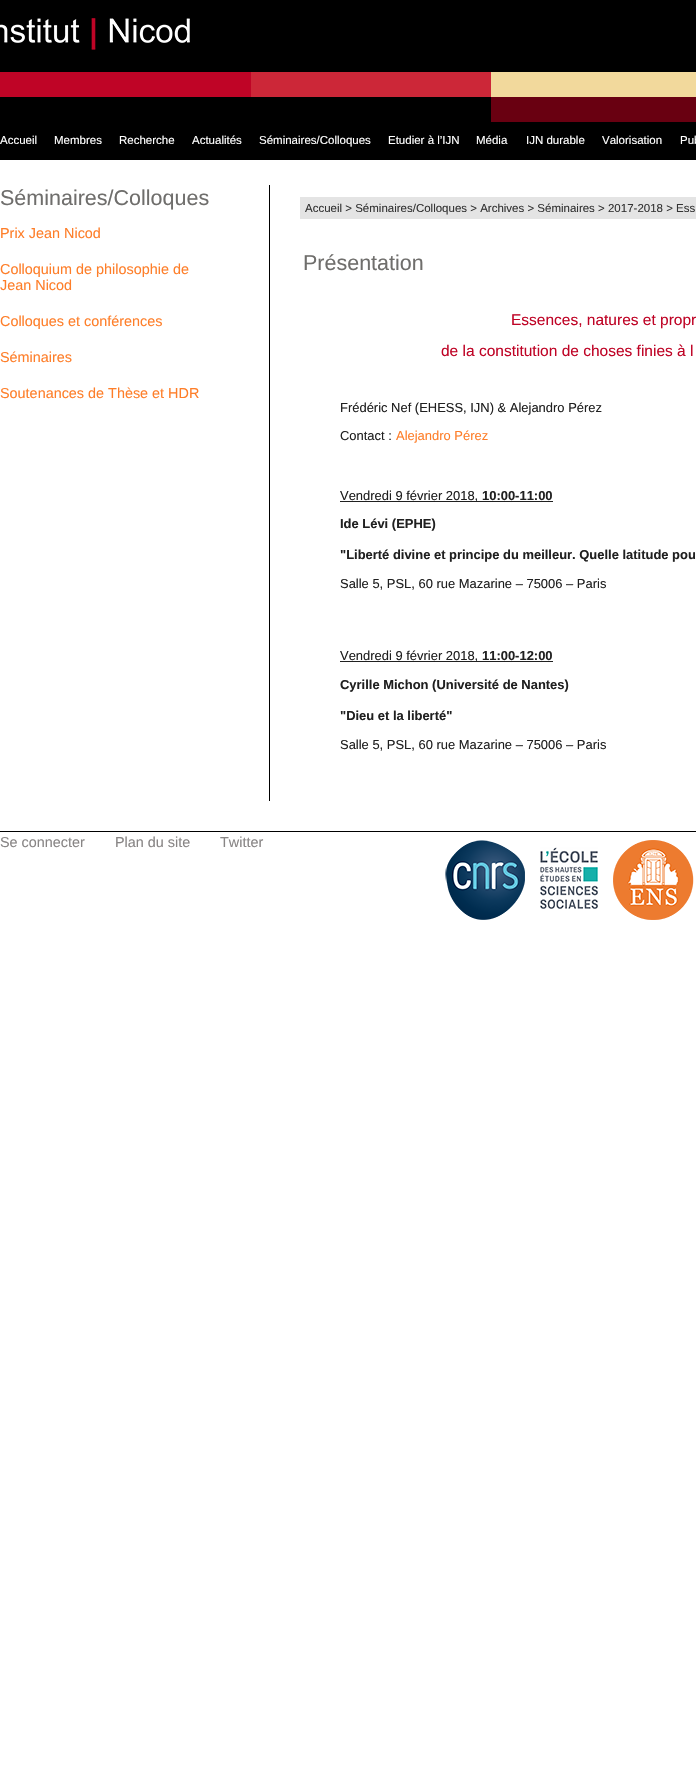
void draw(SkCanvas* canvas) {
    SkPaint paint;
    paint.setAntiAlias(true);
    canvas->clear(0xFFFFFFFF);
    paint.setColor(0xFF000000);
    canvas->drawRect(SkRect::MakeXYWH(0, 0, 696, 160), paint);
    canvas->drawImageRect(SkImages::DeferredFromEncodedData(SkData::MakeFromFileName("img1.png")), SkRect::MakeXYWH(0, 72, 696, 50), SkSamplingOptions());
    canvas->drawImageRect(SkImages::DeferredFromEncodedData(SkData::MakeFromFileName("img2.png")), SkRect::MakeXYWH(0, 18, 190, 32), SkSamplingOptions());
    SkFont font1(fontMgr->matchFamilyStyle("Liberation Sans", SkFontStyle::Normal()), 11.5f);
    font1.setSubpixel(true);
    paint.setColor(0xFFFFFFFF);
    canvas->drawString("Accueil", 0, 144, font1, paint);
    canvas->drawString("Membres", 54, 144, font1, paint);
    canvas->drawString("Recherche", 119, 144, font1, paint);
    canvas->drawString("Actualités", 192, 144, font1, paint);
    canvas->drawString("Séminaires/Colloques", 259, 144, font1, paint);
    canvas->drawString("Etudier à l’IJN", 388, 144, font1, paint);
    canvas->drawString("Média", 476, 144, font1, paint);
    canvas->drawString("IJN durable", 526, 144, font1, paint);
    canvas->drawString("Valorisation", 602, 144, font1, paint);
    canvas->drawString("Pub", 680, 144, font1, paint);
    SkFont font2(fontMgr->matchFamilyStyle("Liberation Sans", SkFontStyle::Normal()), 21.5f);
    font2.setSubpixel(true);
    paint.setColor(0xFF6F6E6C);
    canvas->drawString("Séminaires/Colloques", 0, 205, font2, paint);
    SkFont font3(fontMgr->matchFamilyStyle("Liberation Sans", SkFontStyle::Normal()), 14.4f);
    font3.setSubpixel(true);
    paint.setColor(0xFFFE7E29);
    canvas->drawString("Prix Jean Nicod", 0, 238, font3, paint);
    canvas->drawString("Colloquium de philosophie de", 0, 274, font3, paint);
    canvas->drawString("Jean Nicod", 0, 290, font3, paint);
    canvas->drawString("Colloques et conférences", 0, 326, font3, paint);
    canvas->drawString("Séminaires", 0, 362, font3, paint);
    canvas->drawString("Soutenances de Thèse et HDR", 0, 398, font3, paint);
    paint.setColor(0xFF000000);
    canvas->drawRect(SkRect::MakeXYWH(269, 185, 1, 616), paint);
    paint.setColor(0xFFE4E4E4);
    canvas->drawRect(SkRect::MakeXYWH(300, 197, 396, 22), paint);
    paint.setColor(0xFF333333);
    canvas->drawString("Accueil > Séminaires/Colloques > Archives > Séminaires > 2017-2018 > Ess", 305, 212, font1, paint);
    paint.setColor(0xFF6F6E6C);
    canvas->drawString("Présentation", 303, 270, font2, paint);
    SkFont font4(fontMgr->matchFamilyStyle("Liberation Sans", SkFontStyle::Normal()), 15.5f);
    font4.setSubpixel(true);
    paint.setColor(0xFFBF0426);
    canvas->drawString("Essences, natures et propr", 511, 325, font4, paint);
    canvas->drawString("de la constitution de choses finies à l", 441, 356, font4, paint);
    SkFont font5(fontMgr->matchFamilyStyle("Liberation Sans", SkFontStyle::Normal()), 12.95f);
    font5.setSubpixel(true);
    paint.setColor(0xFF202020);
    canvas->drawString("Frédéric Nef (EHESS, IJN) & Alejandro Pérez", 340, 412, font5, paint);
    canvas->drawString("Contact :", 340, 440, font5, paint);
    paint.setColor(0xFFFE7E29);
    canvas->drawString("Alejandro Pérez", 396, 440, font5, paint);
    paint.setColor(0xFF202020);
    canvas->drawRect(SkRect::MakeXYWH(340, 501, 213, 1), paint);
    canvas->drawString("Vendredi 9 février 2018,", 340, 500, font5, paint);
    SkFont font6(fontMgr->matchFamilyStyle("Liberation Sans", SkFontStyle::Bold()), 12.95f);
    font6.setSubpixel(true);
    canvas->drawString("10:00-11:00", 482, 500, font6, paint);
    canvas->drawString("Ide Lévi (EPHE)", 340, 528, font6, paint);
    canvas->drawString("\"Liberté divine et principe du meilleur. Quelle latitude pou", 340, 559, font6, paint);
    canvas->drawString("Salle 5, PSL, 60 rue Mazarine – 75006 – Paris", 340, 588, font5, paint);
    canvas->drawRect(SkRect::MakeXYWH(340, 661, 213, 1), paint);
    canvas->drawString("Vendredi 9 février 2018,", 340, 660, font5, paint);
    canvas->drawString("11:00-12:00", 482, 660, font6, paint);
    canvas->drawString("Cyrille Michon (Université de Nantes)", 340, 689, font6, paint);
    canvas->drawString("\"Dieu et la liberté\"", 340, 720, font6, paint);
    canvas->drawString("Salle 5, PSL, 60 rue Mazarine – 75006 – Paris", 340, 749, font5, paint);
    paint.setColor(0xFF000000);
    canvas->drawRect(SkRect::MakeXYWH(0, 831, 696, 1), paint);
    paint.setColor(0xFF888585);
    canvas->drawString("Se connecter", 0, 847, font3, paint);
    canvas->drawString("Plan du site", 115, 847, font3, paint);
    canvas->drawString("Twitter", 220, 847, font3, paint);
    canvas->drawImageRect(SkImages::DeferredFromEncodedData(SkData::MakeFromFileName("img3.png")), SkRect::MakeXYWH(445, 840, 80, 80), SkSamplingOptions());
    canvas->drawImageRect(SkImages::DeferredFromEncodedData(SkData::MakeFromFileName("img4.png")), SkRect::MakeXYWH(540, 847, 58, 62), SkSamplingOptions());
    canvas->drawImageRect(SkImages::DeferredFromEncodedData(SkData::MakeFromFileName("img5.png")), SkRect::MakeXYWH(613, 840, 81, 80), SkSamplingOptions());
}
